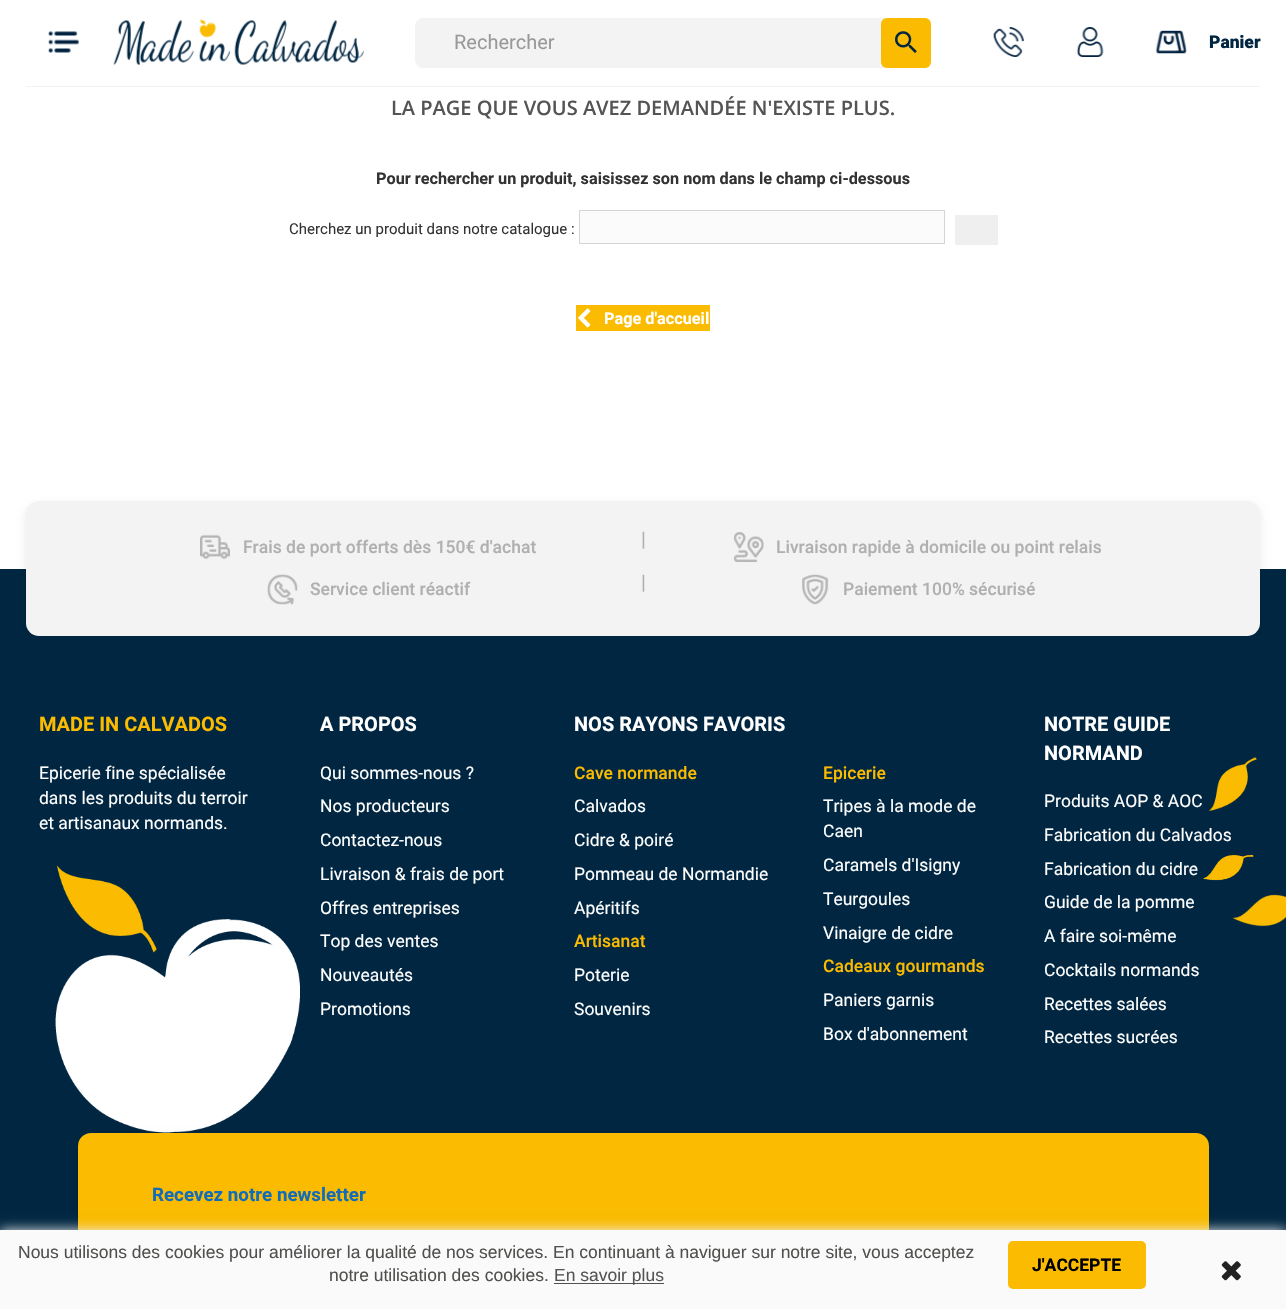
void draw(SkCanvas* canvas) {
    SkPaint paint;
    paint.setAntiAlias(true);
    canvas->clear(0xFFFFFFFF);
    paint.setColor(0xFFF3F3F3);
    canvas->drawRect(SkRect::MakeXYWH(26, 86, 1234, 1), paint);
    canvas->drawImageRect(SkImages::DeferredFromEncodedData(SkData::MakeFromFileName("img1.png")), SkRect::MakeXYWH(113, 19, 251, 46), SkSamplingOptions());
    canvas->drawImageRect(SkImages::DeferredFromEncodedData(SkData::MakeFromFileName("img2.png")), SkRect::MakeXYWH(48, 31, 31, 22), SkSamplingOptions());
    canvas->drawRoundRect(SkRect::MakeXYWH(415.5f, 18.5f, 515, 49), 7.5f, 7.5f, paint);
    paint.setStyle(SkPaint::kStroke_Style);
    paint.setStrokeWidth(1);
    canvas->drawRoundRect(SkRect::MakeXYWH(415.5f, 18.5f, 515, 49), 7.5f, 7.5f, paint);
    SkFont font1(fontMgr->matchFamilyStyle("Roboto", SkFontStyle::Normal()), 20);
    font1.setSubpixel(true);
    paint.setStyle(SkPaint::kFill_Style);
    paint.setColor(0xFF999999);
    canvas->drawString("Rechercher", 454, 49, font1, paint);
    paint.setColor(0xFFFABB00);
    canvas->drawRoundRect(SkRect::MakeXYWH(881, 18, 50, 50), 6, 6, paint);
    canvas->drawImageRect(SkImages::DeferredFromEncodedData(SkData::MakeFromFileName("img3.png")), SkRect::MakeXYWH(895, 31, 22, 22), SkSamplingOptions());
    canvas->drawImageRect(SkImages::DeferredFromEncodedData(SkData::MakeFromFileName("img4.png")), SkRect::MakeXYWH(993, 27, 31, 30), SkSamplingOptions());
    canvas->drawImageRect(SkImages::DeferredFromEncodedData(SkData::MakeFromFileName("img5.png")), SkRect::MakeXYWH(1076, 27, 28, 30), SkSamplingOptions());
    canvas->drawImageRect(SkImages::DeferredFromEncodedData(SkData::MakeFromFileName("img6.png")), SkRect::MakeXYWH(1155, 30, 32, 24), SkSamplingOptions());
    SkFont font2(fontMgr->matchFamilyStyle("Roboto", SkFontStyle(900, SkFontStyle::kNormal_Width, SkFontStyle::kUpright_Slant)), 17.5f);
    font2.setSubpixel(true);
    paint.setColor(0xFF002641);
    canvas->drawString("Panier", 1209, 48, font2, paint);
    SkFont font3(fontMgr->matchFamilyStyle("Open Sans", SkFontStyle(600, SkFontStyle::kNormal_Width, SkFontStyle::kUpright_Slant)), 20);
    font3.setSubpixel(true);
    paint.setColor(0xFF555454);
    canvas->drawString("LA PAGE QUE VOUS AVEZ DEMANDÉE N'EXISTE PLUS.", 391, 115, font3, paint);
    SkFont font4(fontMgr->matchFamilyStyle("Roboto", SkFontStyle::Bold()), 16.25f);
    font4.setSubpixel(true);
    paint.setColor(0xFF333333);
    canvas->drawString("Pour rechercher un produit, saisissez son nom dans le champ ci-dessous", 376, 184, font4, paint);
    SkFont font5(fontMgr->matchFamilyStyle("Roboto", SkFontStyle::Normal()), 15);
    font5.setSubpixel(true);
    canvas->drawString("Cherchez un produit dans notre catalogue :", 289, 234, font5, paint);
    paint.setColor(0xFFFBFBFB);
    canvas->drawRect(SkRect::MakeXYWH(579.5f, 210.5f, 365, 33), paint);
    paint.setStyle(SkPaint::kStroke_Style);
    paint.setColor(0xFFD6D4D4);
    canvas->drawRect(SkRect::MakeXYWH(579.5f, 210.5f, 365, 33), paint);
    paint.setStyle(SkPaint::kFill_Style);
    paint.setColor(0xFFEFEFEF);
    canvas->drawRect(SkRect::MakeXYWH(955, 215, 43, 30), paint);
    paint.setColor(0xFFFABB00);
    canvas->drawRect(SkRect::MakeXYWH(576, 305, 134, 26), paint);
    canvas->drawImageRect(SkImages::DeferredFromEncodedData(SkData::MakeFromFileName("img7.png")), SkRect::MakeXYWH(578, 308, 13, 20), SkSamplingOptions());
    paint.setColor(0xFFFFFFFF);
    canvas->drawString("Page d'accueil", 604, 324, font4, paint);
    paint.setColor(0xFF002641);
    canvas->drawRect(SkRect::MakeXYWH(0, 569, 1286, 67), paint);
    paint.setColor(0x17000000);
    paint.setMaskFilter(SkMaskFilter::MakeBlur(kNormal_SkBlurStyle, 4));
    canvas->drawRoundRect(SkRect::MakeXYWH(26, 505, 1234, 135), 13, 13, paint);
    paint.setMaskFilter(nullptr);
    paint.setColor(0xFFF3F3F3);
    canvas->drawRoundRect(SkRect::MakeXYWH(26, 501, 1234, 135), 13, 13, paint);
    canvas->drawImageRect(SkImages::DeferredFromEncodedData(SkData::MakeFromFileName("img8.png")), SkRect::MakeXYWH(200, 534, 30, 26), SkSamplingOptions());
    SkFont font6(fontMgr->matchFamilyStyle("Roboto", SkFontStyle(500, SkFontStyle::kNormal_Width, SkFontStyle::kUpright_Slant)), 17.5f);
    font6.setSubpixel(true);
    paint.setColor(0xFFB0B0B0);
    canvas->drawString("Frais de port offerts dès 150€ d'achat", 243, 553, font6, paint);
    canvas->drawString("|", 641, 546, font1, paint);
    canvas->drawImageRect(SkImages::DeferredFromEncodedData(SkData::MakeFromFileName("img9.png")), SkRect::MakeXYWH(733, 532, 31, 30), SkSamplingOptions());
    canvas->drawString("Livraison rapide à domicile ou point relais", 776, 553, font6, paint);
    canvas->drawImageRect(SkImages::DeferredFromEncodedData(SkData::MakeFromFileName("img10.png")), SkRect::MakeXYWH(267, 574, 31, 31), SkSamplingOptions());
    canvas->drawString("Service client réactif", 310, 595, font6, paint);
    canvas->drawString("|", 641, 589, font1, paint);
    canvas->drawImageRect(SkImages::DeferredFromEncodedData(SkData::MakeFromFileName("img11.png")), SkRect::MakeXYWH(802, 574, 27, 31), SkSamplingOptions());
    canvas->drawString("Paiement 100% sécurisé", 843, 595, font6, paint);
    paint.setColor(0xFF002641);
    canvas->drawRect(SkRect::MakeXYWH(0, 636, 1286, 594), paint);
    SkFont font7(fontMgr->matchFamilyStyle("Roboto", SkFontStyle::Bold()), 20);
    font7.setSubpixel(true);
    paint.setColor(0xFFFABB00);
    canvas->drawString("MADE IN CALVADOS", 39, 731, font7, paint);
    SkFont font8(fontMgr->matchFamilyStyle("Roboto", SkFontStyle::Normal()), 17.5f);
    font8.setSubpixel(true);
    paint.setColor(0xFFFFFFFF);
    canvas->drawString("Epicerie fine spécialisée", 39, 779, font8, paint);
    canvas->drawString("dans les produits du terroir", 39, 804, font8, paint);
    canvas->drawString("et artisanaux normands.", 39, 829, font8, paint);
    canvas->drawImageRect(SkImages::DeferredFromEncodedData(SkData::MakeFromFileName("img12.png")), SkRect::MakeXYWH(55, 865, 245, 268), SkSamplingOptions());
    canvas->drawString("A PROPOS", 320, 731, font7, paint);
    canvas->drawString("Qui sommes-nous ?", 320, 779, font8, paint);
    canvas->drawString("Nos producteurs", 320, 812, font8, paint);
    canvas->drawString("Contactez-nous", 320, 846, font8, paint);
    canvas->drawString("Livraison & frais de port", 320, 880, font8, paint);
    canvas->drawString("Offres entreprises", 320, 914, font8, paint);
    canvas->drawString("Top des ventes", 320, 947, font8, paint);
    canvas->drawString("Nouveautés", 320, 981, font8, paint);
    canvas->drawString("Promotions", 320, 1015, font8, paint);
    canvas->drawString("NOS RAYONS FAVORIS", 574, 731, font7, paint);
    paint.setColor(0xFFFABB00);
    canvas->drawString("Cave normande", 574, 779, font6, paint);
    paint.setColor(0xFFFFFFFF);
    canvas->drawString("Calvados", 574, 812, font8, paint);
    canvas->drawString("Cidre & poiré", 574, 846, font8, paint);
    canvas->drawString("Pommeau de Normandie", 574, 880, font8, paint);
    canvas->drawString("Apéritifs", 574, 914, font8, paint);
    paint.setColor(0xFFFABB00);
    canvas->drawString("Artisanat", 574, 947, font6, paint);
    paint.setColor(0xFFFFFFFF);
    canvas->drawString("Poterie", 574, 981, font8, paint);
    canvas->drawString("Souvenirs", 574, 1015, font8, paint);
    paint.setColor(0xFFFABB00);
    canvas->drawString("Epicerie", 823, 779, font6, paint);
    paint.setColor(0xFFFFFFFF);
    canvas->drawString("Tripes à la mode de", 823, 812, font8, paint);
    canvas->drawString("Caen", 823, 837, font8, paint);
    canvas->drawString("Caramels d'Isigny", 823, 871, font8, paint);
    canvas->drawString("Teurgoules", 823, 905, font8, paint);
    canvas->drawString("Vinaigre de cidre", 823, 939, font8, paint);
    paint.setColor(0xFFFABB00);
    canvas->drawString("Cadeaux gourmands", 823, 972, font6, paint);
    paint.setColor(0xFFFFFFFF);
    canvas->drawString("Paniers garnis", 823, 1006, font8, paint);
    canvas->drawString("Box d'abonnement", 823, 1040, font8, paint);
    canvas->drawString("NOTRE GUIDE", 1044, 731, font7, paint);
    canvas->drawString("NORMAND", 1044, 760, font7, paint);
    canvas->drawImageRect(SkImages::DeferredFromEncodedData(SkData::MakeFromFileName("img13.png")), SkRect::MakeXYWH(1202, 757, 84, 170), SkSamplingOptions());
    canvas->drawString("Produits AOP & AOC", 1044, 807, font8, paint);
    canvas->drawString("Fabrication du Calvados", 1044, 841, font8, paint);
    canvas->drawString("Fabrication du cidre", 1044, 875, font8, paint);
    canvas->drawString("Guide de la pomme", 1044, 908, font8, paint);
    canvas->drawString("A faire soi-même", 1044, 942, font8, paint);
    canvas->drawString("Cocktails normands", 1044, 976, font8, paint);
    canvas->drawString("Recettes salées", 1044, 1010, font8, paint);
    canvas->drawString("Recettes sucrées", 1044, 1043, font8, paint);
    paint.setColor(0x17000000);
    paint.setMaskFilter(SkMaskFilter::MakeBlur(kNormal_SkBlurStyle, 4));
    canvas->drawRoundRect(SkRect::MakeXYWH(78, 1136, 1131, 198), 13, 13, paint);
    paint.setMaskFilter(nullptr);
    paint.setColor(0xFFFABB00);
    canvas->drawRoundRect(SkRect::MakeXYWH(78, 1133, 1131, 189), 13, 13, paint);
    SkFont font9(fontMgr->matchFamilyStyle("Roboto", SkFontStyle::Bold()), 18.75f);
    font9.setSubpixel(true);
    paint.setColor(0xFF136CB9);
    canvas->drawString("Recevez notre newsletter", 152, 1201, font9, paint);
    paint.setColor(0xFFEEEEEE);
    paint.setMaskFilter(SkMaskFilter::MakeBlur(kNormal_SkBlurStyle, 6));
    canvas->drawRect(SkRect::MakeXYWH(0, 1230, 1286, 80), paint);
    paint.setMaskFilter(nullptr);
    paint.setColor(0xFFFAFAFA);
    canvas->drawRect(SkRect::MakeXYWH(0, 1230, 1286, 79), paint);
    SkFont font10(fontMgr->matchFamilyStyle("Liberation Sans", SkFontStyle::Normal()), 17.5f);
    font10.setSubpixel(true);
    paint.setColor(0xFF50514E);
    canvas->drawString("Nous utilisons des cookies pour améliorer la qualité de nos services. En continuant à naviguer sur notre site, vous acceptez", 18, 1258, font10, paint);
    canvas->drawString("notre utilisation des cookies.", 329, 1281, font10, paint);
    paint.setColor(0xFF515151);
    canvas->drawRect(SkRect::MakeXYWH(554, 1283, 110, 1), paint);
    paint.setColor(0xFF555454);
    canvas->drawString("En savoir plus", 554, 1281, font10, paint);
    paint.setColor(0xFFFABB00);
    canvas->drawRoundRect(SkRect::MakeXYWH(1008, 1241, 138, 48), 5, 5, paint);
    SkFont font11(fontMgr->matchFamilyStyle("Roboto", SkFontStyle::Bold()), 17.5f);
    font11.setSubpixel(true);
    paint.setColor(0xFF000000);
    canvas->drawString("J'ACCEPTE", 1032, 1271, font11, paint);
    canvas->drawImageRect(SkImages::DeferredFromEncodedData(SkData::MakeFromFileName("img14.png")), SkRect::MakeXYWH(1221, 1261, 20, 20), SkSamplingOptions());
}
